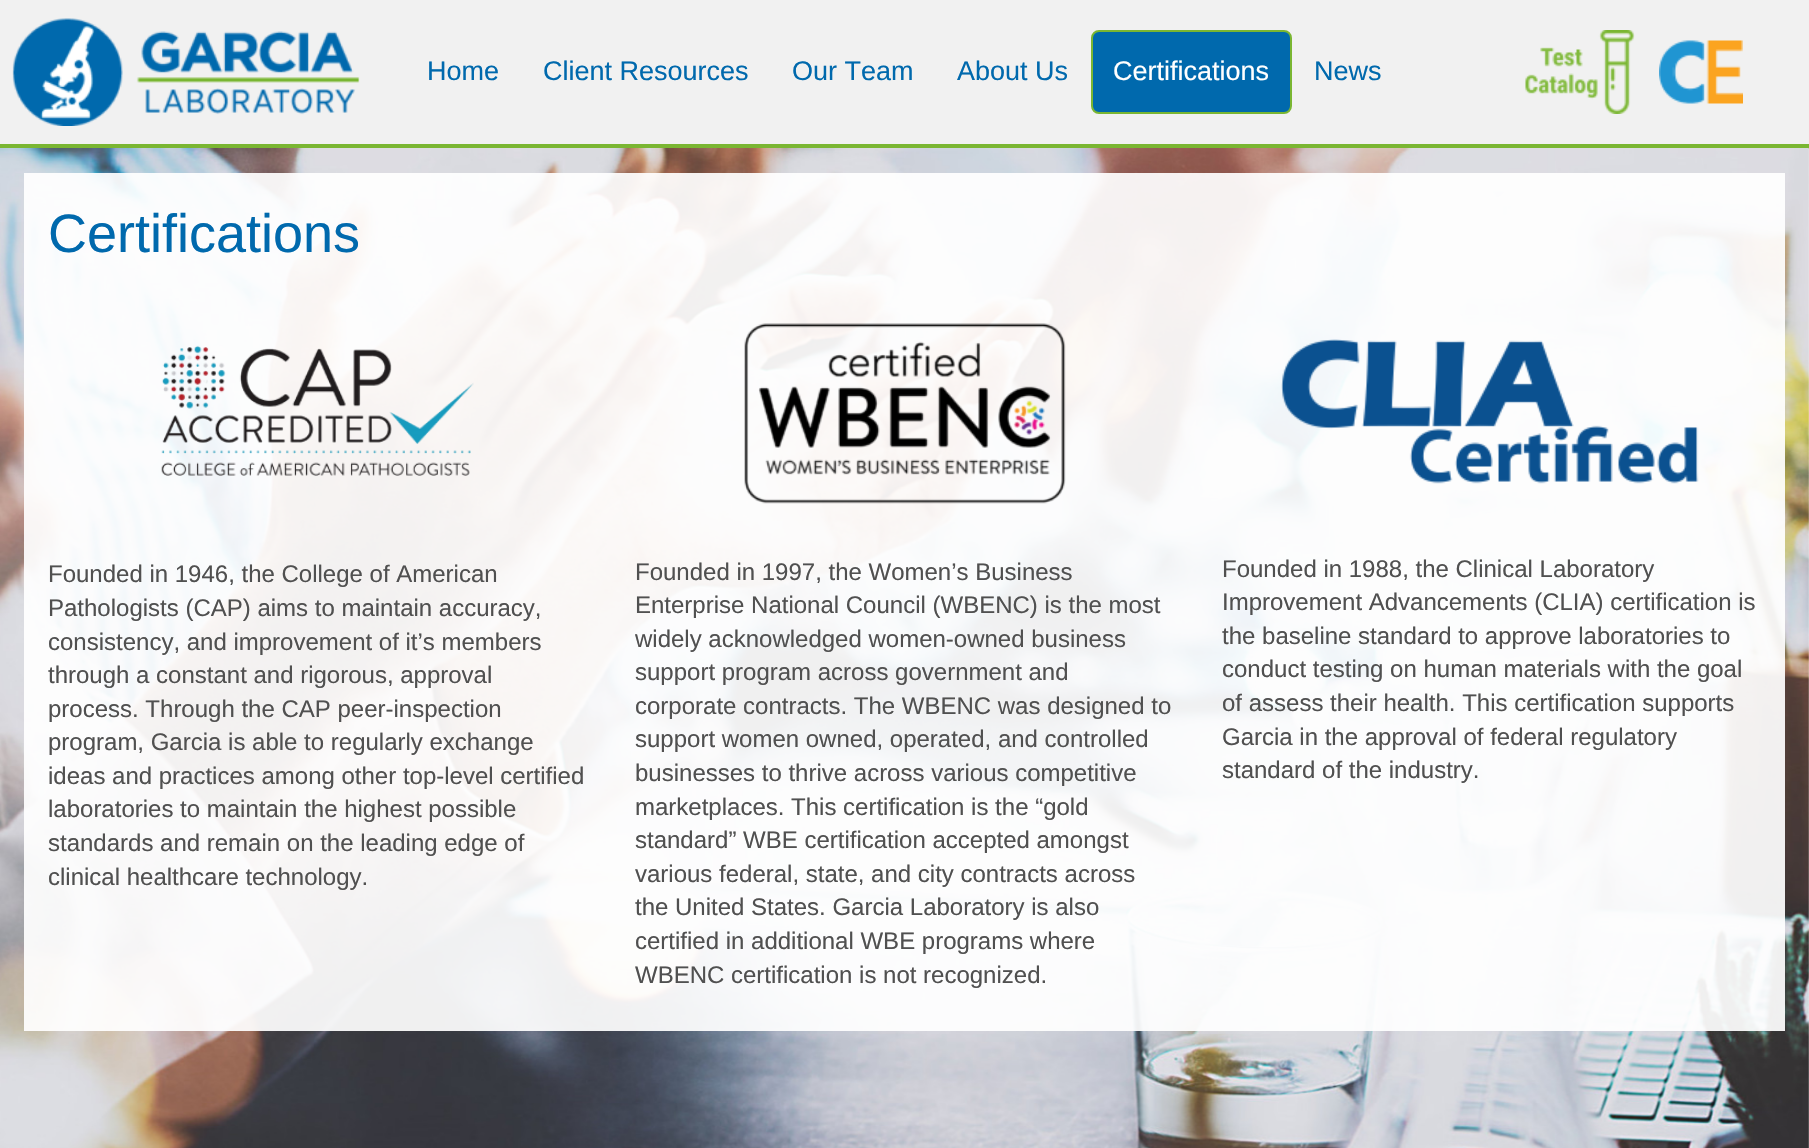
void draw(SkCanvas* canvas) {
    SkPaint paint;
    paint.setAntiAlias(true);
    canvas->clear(0xFFF1F1F1);
    paint.setColor(0xFF7AB632);
    canvas->drawRect(SkRect::MakeXYWH(0, 144, 1809, 5), paint);
    canvas->drawImageRect(SkImages::DeferredFromEncodedData(SkData::MakeFromFileName("img1.png")), SkRect::MakeXYWH(12, 18, 348, 108), SkSamplingOptions());
    SkFont font1(fontMgr->matchFamilyStyle("Liberation Sans", SkFontStyle::Normal()), 27);
    font1.setSubpixel(true);
    paint.setColor(0xFF0069AD);
    canvas->drawString("Home", 427, 80, font1, paint);
    canvas->drawString("Client Resources", 543, 80, font1, paint);
    canvas->drawString("Our Team", 792, 80, font1, paint);
    canvas->drawString("About Us", 957, 80, font1, paint);
    canvas->drawRoundRect(SkRect::MakeXYWH(1092, 31, 199, 82), 7, 7, paint);
    paint.setStyle(SkPaint::kStroke_Style);
    paint.setStrokeWidth(2);
    paint.setColor(0xFF7AB632);
    canvas->drawRoundRect(SkRect::MakeXYWH(1092, 31, 199, 82), 7, 7, paint);
    paint.setStyle(SkPaint::kFill_Style);
    paint.setColor(0xFFFFFFFF);
    canvas->drawString("Certifications", 1113, 80, font1, paint);
    paint.setColor(0xFF0069AD);
    canvas->drawString("News", 1314, 80, font1, paint);
    canvas->drawImageRect(SkImages::DeferredFromEncodedData(SkData::MakeFromFileName("img2.png")), SkRect::MakeXYWH(1525, 30, 110, 84), SkSamplingOptions());
    canvas->drawImageRect(SkImages::DeferredFromEncodedData(SkData::MakeFromFileName("img3.png")), SkRect::MakeXYWH(1659, 40, 84, 64), SkSamplingOptions());
    canvas->drawImageRect(SkImages::DeferredFromEncodedData(SkData::MakeFromFileName("img4.png")), SkRect::MakeXYWH(0, 148, 1809, 1000), SkSamplingOptions());
    paint.setColor(0xEBFFFFFF);
    canvas->drawRect(SkRect::MakeXYWH(24, 173, 1761, 123), paint);
    SkFont font2(fontMgr->matchFamilyStyle("Liberation Sans", SkFontStyle::Normal()), 54);
    font2.setSubpixel(true);
    paint.setColor(0xFF0069AD);
    canvas->drawString("Certifications", 48, 252, font2, paint);
    paint.setColor(0xEBFFFFFF);
    canvas->drawRect(SkRect::MakeXYWH(24, 296, 587, 735), paint);
    canvas->drawImageRect(SkImages::DeferredFromEncodedData(SkData::MakeFromFileName("img5.png")), SkRect::MakeXYWH(161, 345, 313, 131), SkSamplingOptions());
    SkFont font3(fontMgr->matchFamilyStyle("Liberation Sans", SkFontStyle::Normal()), 24);
    font3.setSubpixel(true);
    paint.setColor(0xFF505050);
    canvas->drawString("Founded in 1946, the College of American", 48, 582, font3, paint);
    canvas->drawString("Pathologists (CAP) aims to maintain accuracy,", 48, 616, font3, paint);
    canvas->drawString("consistency, and improvement of it’s members", 48, 650, font3, paint);
    canvas->drawString("through a constant and rigorous, approval", 48, 683, font3, paint);
    canvas->drawString("process. Through the CAP peer-inspection", 48, 717, font3, paint);
    canvas->drawString("program, Garcia is able to regularly exchange", 48, 750, font3, paint);
    canvas->drawString("ideas and practices among other top-level certified", 48, 784, font3, paint);
    canvas->drawString("laboratories to maintain the highest possible", 48, 817, font3, paint);
    canvas->drawString("standards and remain on the leading edge of", 48, 851, font3, paint);
    canvas->drawString("clinical healthcare technology.", 48, 885, font3, paint);
    paint.setColor(0xEBFFFFFF);
    canvas->drawRect(SkRect::MakeXYWH(611, 296, 588, 735), paint);
    canvas->drawImageRect(SkImages::DeferredFromEncodedData(SkData::MakeFromFileName("img6.png")), SkRect::MakeXYWH(744, 323, 322, 181), SkSamplingOptions());
    paint.setColor(0xFF505050);
    canvas->drawString("Founded in 1997, the Women’s Business", 635, 580, font3, paint);
    canvas->drawString("Enterprise National Council (WBENC) is the most", 635, 613, font3, paint);
    canvas->drawString("widely acknowledged women-owned business", 635, 647, font3, paint);
    canvas->drawString("support program across government and", 635, 680, font3, paint);
    canvas->drawString("corporate contracts. The WBENC was designed to", 635, 714, font3, paint);
    canvas->drawString("support women owned, operated, and controlled", 635, 747, font3, paint);
    canvas->drawString("businesses to thrive across various competitive", 635, 781, font3, paint);
    canvas->drawString("marketplaces. This certification is the “gold", 635, 815, font3, paint);
    canvas->drawString("standard” WBE certification accepted amongst", 635, 848, font3, paint);
    canvas->drawString("various federal, state, and city contracts across", 635, 882, font3, paint);
    canvas->drawString("the United States. Garcia Laboratory is also", 635, 915, font3, paint);
    canvas->drawString("certified in additional WBE programs where", 635, 949, font3, paint);
    canvas->drawString("WBENC certification is not recognized.", 635, 983, font3, paint);
    paint.setColor(0xEBFFFFFF);
    canvas->drawRect(SkRect::MakeXYWH(1199, 296, 586, 735), paint);
    canvas->drawImageRect(SkImages::DeferredFromEncodedData(SkData::MakeFromFileName("img7.png")), SkRect::MakeXYWH(1281, 339, 418, 145), SkSamplingOptions());
    paint.setColor(0xFF505050);
    canvas->drawString("Founded in 1988, the Clinical Laboratory", 1222, 577, font3, paint);
    canvas->drawString("Improvement Advancements (CLIA) certification is", 1222, 610, font3, paint);
    canvas->drawString("the baseline standard to approve laboratories to", 1222, 644, font3, paint);
    canvas->drawString("conduct testing on human materials with the goal", 1222, 677, font3, paint);
    canvas->drawString("of assess their health. This certification supports", 1222, 711, font3, paint);
    canvas->drawString("Garcia in the approval of federal regulatory", 1222, 745, font3, paint);
    canvas->drawString("standard of the industry.", 1222, 778, font3, paint);
}
